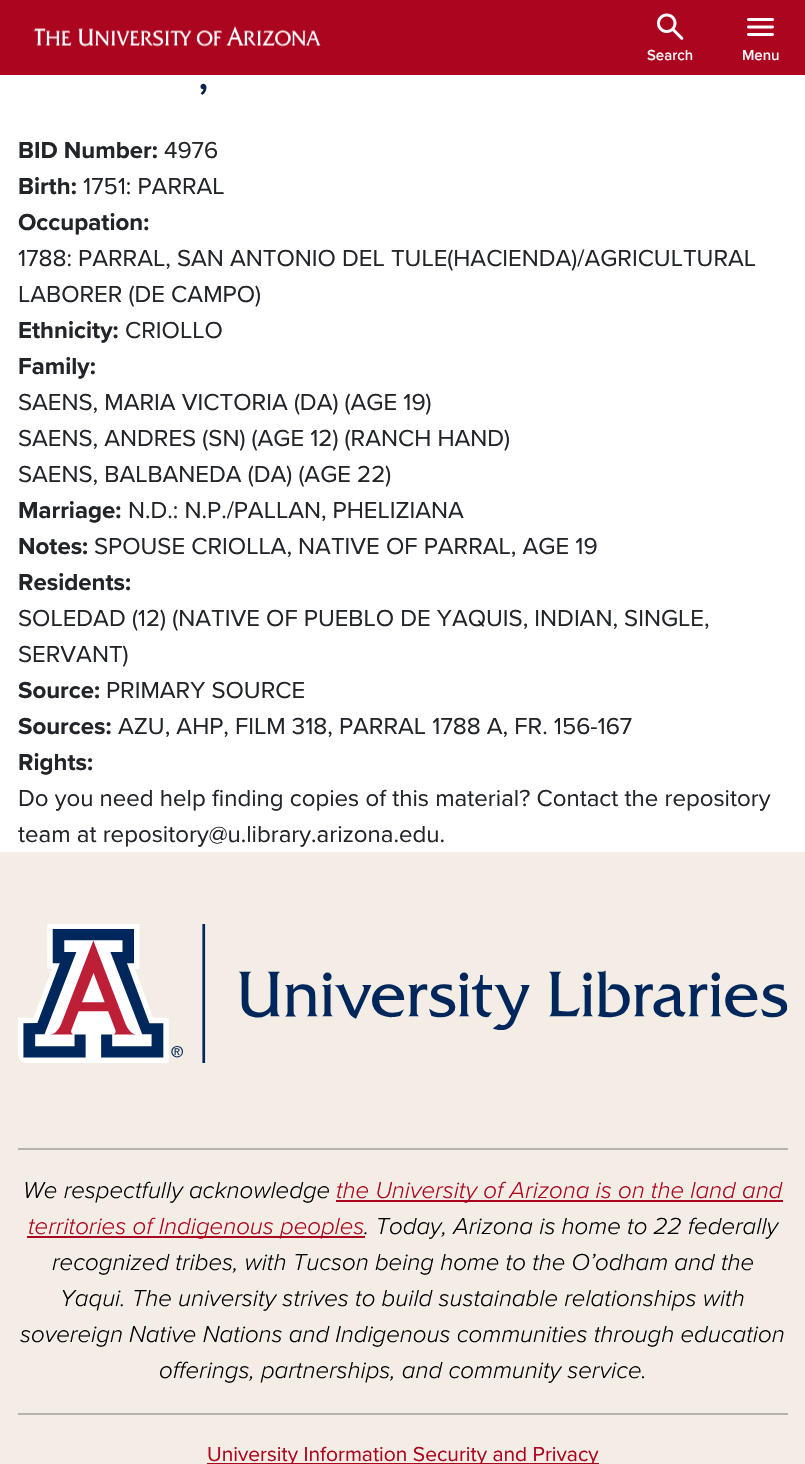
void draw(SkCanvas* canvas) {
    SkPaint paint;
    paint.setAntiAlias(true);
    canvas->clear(0xFFFFFFFF);
    paint.setColor(0xFFAB0520);
    canvas->drawRect(SkRect::MakeXYWH(0, 0, 805, 75), paint);
    canvas->drawImageRect(SkImages::DeferredFromEncodedData(SkData::MakeFromFileName("img1.png")), SkRect::MakeXYWH(33, 26, 288, 21), SkSamplingOptions());
    canvas->drawImageRect(SkImages::DeferredFromEncodedData(SkData::MakeFromFileName("img2.png")), SkRect::MakeXYWH(657, 13, 27, 27), SkSamplingOptions());
    SkFont font1(fontMgr->matchFamilyStyle("Proxima Nova", SkFontStyle(500, SkFontStyle::kNormal_Width, SkFontStyle::kUpright_Slant)), 15);
    font1.setSubpixel(true);
    paint.setColor(0xFFFFFFFF);
    canvas->drawString("Search", 647, 60, font1, paint);
    canvas->drawImageRect(SkImages::DeferredFromEncodedData(SkData::MakeFromFileName("img3.png")), SkRect::MakeXYWH(747, 18, 27, 18), SkSamplingOptions());
    canvas->drawString("Menu", 742, 60, font1, paint);
    SkFont font2(fontMgr->matchFamilyStyle("Proxima Nova", SkFontStyle(500, SkFontStyle::kNormal_Width, SkFontStyle::kUpright_Slant)), 45);
    font2.setSubpixel(true);
    paint.setColor(0xFF0C234B);
    canvas->drawString(",", 198, 89, font2, paint);
    SkFont font3(fontMgr->matchFamilyStyle("Proxima Nova", SkFontStyle::Bold()), 24);
    font3.setSubpixel(true);
    paint.setColor(0xFF212529);
    canvas->drawString("BID Number:", 18, 158, font3, paint);
    SkFont font4(fontMgr->matchFamilyStyle("Proxima Nova", SkFontStyle::Normal()), 24);
    font4.setSubpixel(true);
    canvas->drawString("4976", 164, 158, font4, paint);
    canvas->drawString("Birth:", 18, 194, font3, paint);
    canvas->drawString("1751: PARRAL", 83, 194, font4, paint);
    canvas->drawString("Occupation:", 18, 230, font3, paint);
    canvas->drawString("1788: PARRAL, SAN ANTONIO DEL TULE(HACIENDA)/AGRICULTURAL", 18, 266, font4, paint);
    canvas->drawString("LABORER (DE CAMPO)", 18, 302, font4, paint);
    canvas->drawString("Ethnicity:", 18, 338, font3, paint);
    canvas->drawString("CRIOLLO", 125, 338, font4, paint);
    canvas->drawString("Family:", 18, 374, font3, paint);
    canvas->drawString("SAENS, MARIA VICTORIA (DA) (AGE 19)", 18, 410, font4, paint);
    canvas->drawString("SAENS, ANDRES (SN) (AGE 12) (RANCH HAND)", 18, 446, font4, paint);
    canvas->drawString("SAENS, BALBANEDA (DA) (AGE 22)", 18, 482, font4, paint);
    canvas->drawString("Marriage:", 18, 518, font3, paint);
    canvas->drawString("N.D.: N.P./PALLAN, PHELIZIANA", 128, 518, font4, paint);
    canvas->drawString("Notes:", 18, 554, font3, paint);
    canvas->drawString("SPOUSE CRIOLLA, NATIVE OF PARRAL, AGE 19", 94, 554, font4, paint);
    canvas->drawString("Residents:", 18, 590, font3, paint);
    canvas->drawString("SOLEDAD (12) (NATIVE OF PUEBLO DE YAQUIS, INDIAN, SINGLE,", 18, 626, font4, paint);
    canvas->drawString("SERVANT)", 18, 662, font4, paint);
    canvas->drawString("Source:", 18, 698, font3, paint);
    canvas->drawString("PRIMARY SOURCE", 106, 698, font4, paint);
    canvas->drawString("Sources:", 18, 734, font3, paint);
    canvas->drawString("AZU, AHP, FILM 318, PARRAL 1788 A, FR. 156-167", 118, 734, font4, paint);
    canvas->drawString("Rights:", 18, 770, font3, paint);
    canvas->drawString("Do you need help finding copies of this material? Contact the repository", 18, 806, font4, paint);
    canvas->drawString("team at repository@u.library.arizona.edu.", 18, 842, font4, paint);
    paint.setColor(0xFFF4EDE5);
    canvas->drawRect(SkRect::MakeXYWH(0, 852, 805, 612), paint);
    canvas->drawImageRect(SkImages::DeferredFromEncodedData(SkData::MakeFromFileName("img4.png")), SkRect::MakeXYWH(18, 924, 770, 139), SkSamplingOptions());
    paint.setColor(0xFFB7B2AC);
    canvas->drawRect(SkRect::MakeXYWH(18, 1148, 770, 2), paint);
    SkFont font5(fontMgr->matchFamilyStyle("Proxima Nova", SkFontStyle(300, SkFontStyle::kNormal_Width, SkFontStyle::kItalic_Slant)), 24);
    font5.setSubpixel(true);
    paint.setColor(0xFF000000);
    canvas->drawString("We respectfully acknowledge", 23, 1198, font5, paint);
    paint.setColor(0xFFAB0520);
    canvas->drawRect(SkRect::MakeXYWH(336, 1200, 447, 2), paint);
    canvas->drawString("the University of Arizona is on the land and", 336, 1198, font5, paint);
    canvas->drawRect(SkRect::MakeXYWH(27, 1236, 338, 2), paint);
    canvas->drawString("territories of Indigenous peoples", 28, 1234, font5, paint);
    paint.setColor(0xFF000000);
    canvas->drawString(". Today, Arizona is home to 22 federally", 364, 1234, font5, paint);
    canvas->drawString("recognized tribes, with Tucson being home to the O’odham and the", 52, 1270, font5, paint);
    canvas->drawString("Yaqui. The university strives to build sustainable relationships with", 60, 1306, font5, paint);
    canvas->drawString("sovereign Native Nations and Indigenous communities through education", 20, 1342, font5, paint);
    canvas->drawString("offerings, partnerships, and community service.", 159, 1378, font5, paint);
    paint.setColor(0xFFB7B2AC);
    canvas->drawRect(SkRect::MakeXYWH(18, 1413, 770, 2), paint);
    paint.setColor(0xFFAB0520);
    canvas->drawRect(SkRect::MakeXYWH(207, 1463, 392, 1), paint);
    SkFont font6(fontMgr->matchFamilyStyle("Proxima Nova", SkFontStyle::Normal()), 21);
    font6.setSubpixel(true);
    canvas->drawString("University Information Security and Privacy", 207, 1461, font6, paint);
}
